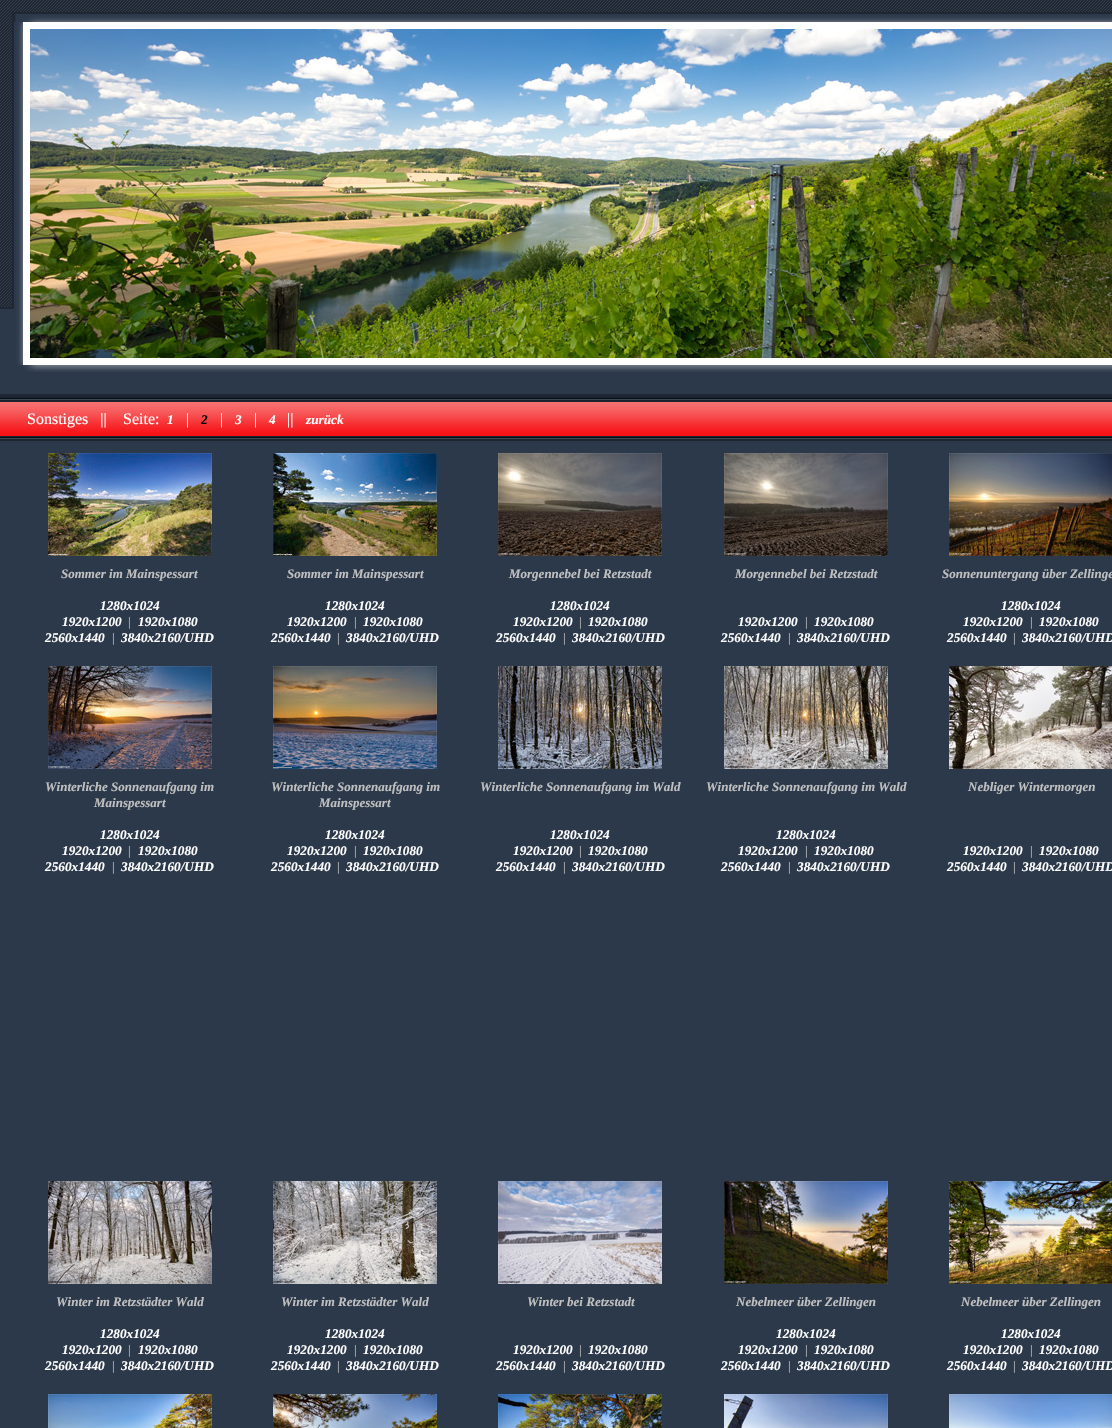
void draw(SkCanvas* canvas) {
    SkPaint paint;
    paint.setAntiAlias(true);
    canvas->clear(0xFF2C394B);
    canvas->drawImageRect(SkImages::DeferredFromEncodedData(SkData::MakeFromFileName("img1.png")), SkRect::MakeXYWH(0, 0, 1112, 441), SkSamplingOptions());
    canvas->drawImageRect(SkImages::DeferredFromEncodedData(SkData::MakeFromFileName("img2.png")), SkRect::MakeXYWH(12, 12, 1100, 10), SkSamplingOptions());
    canvas->drawImageRect(SkImages::DeferredFromEncodedData(SkData::MakeFromFileName("img3.png")), SkRect::MakeXYWH(12, 22, 11, 343), SkSamplingOptions());
    paint.setColor(0xFFFFFFFF);
    canvas->drawRect(SkRect::MakeXYWH(23, 22, 1089, 343), paint);
    canvas->drawImageRect(SkImages::DeferredFromEncodedData(SkData::MakeFromFileName("img4.png")), SkRect::MakeXYWH(30, 29, 1082, 329), SkSamplingOptions());
    canvas->drawImageRect(SkImages::DeferredFromEncodedData(SkData::MakeFromFileName("img5.png")), SkRect::MakeXYWH(23, 365, 1089, 7), SkSamplingOptions());
    SkFont font1(fontMgr->matchFamilyStyle("Liberation Serif", SkFontStyle::Normal()), 16);
    font1.setSubpixel(true);
    canvas->drawString("Sonstiges   ||", 27, 424, font1, paint);
    canvas->drawString("Seite:", 123, 424, font1, paint);
    SkFont font2(fontMgr->matchFamilyStyle("Liberation Serif", SkFontStyle::BoldItalic()), 13.25f);
    font2.setSubpixel(true);
    canvas->drawString("1", 167, 424, font2, paint);
    canvas->drawString("|", 186, 424, font1, paint);
    paint.setColor(0xFF000000);
    canvas->drawString("2", 201, 424, font2, paint);
    paint.setColor(0xFFFFFFFF);
    canvas->drawString("|", 220, 424, font1, paint);
    canvas->drawString("3", 235, 424, font2, paint);
    canvas->drawString("|", 254, 424, font1, paint);
    canvas->drawString("4", 269, 424, font2, paint);
    canvas->drawString("||", 287, 424, font1, paint);
    canvas->drawString("zurück", 306, 424, font2, paint);
    canvas->drawImageRect(SkImages::DeferredFromEncodedData(SkData::MakeFromFileName("img6.png")), SkRect::MakeXYWH(48, 453, 164, 103), SkSamplingOptions());
    canvas->drawImageRect(SkImages::DeferredFromEncodedData(SkData::MakeFromFileName("img7.png")), SkRect::MakeXYWH(273, 453, 164, 103), SkSamplingOptions());
    canvas->drawImageRect(SkImages::DeferredFromEncodedData(SkData::MakeFromFileName("img8.png")), SkRect::MakeXYWH(498, 453, 164, 103), SkSamplingOptions());
    canvas->drawImageRect(SkImages::DeferredFromEncodedData(SkData::MakeFromFileName("img9.png")), SkRect::MakeXYWH(724, 453, 164, 103), SkSamplingOptions());
    canvas->drawImageRect(SkImages::DeferredFromEncodedData(SkData::MakeFromFileName("img10.png")), SkRect::MakeXYWH(949, 453, 163, 103), SkSamplingOptions());
    SkFont font3(fontMgr->matchFamilyStyle("Liberation Serif", SkFontStyle::BoldItalic()), 13);
    font3.setSubpixel(true);
    paint.setColor(0xFFC0C0C0);
    canvas->drawString("Sommer im Mainspessart", 61, 578, font3, paint);
    paint.setColor(0xFFFFFFFF);
    canvas->drawString("1280x1024", 100, 610, font2, paint);
    canvas->drawString("1920x1200", 62, 626, font2, paint);
    SkFont font4(fontMgr->matchFamilyStyle("Liberation Serif", SkFontStyle::Normal()), 13);
    font4.setSubpixel(true);
    paint.setColor(0xFFC0C0C0);
    canvas->drawString("|", 128, 626, font4, paint);
    paint.setColor(0xFFFFFFFF);
    canvas->drawString("1920x1080", 138, 626, font2, paint);
    canvas->drawString("2560x1440", 45, 642, font2, paint);
    paint.setColor(0xFFC0C0C0);
    canvas->drawString("|", 112, 642, font4, paint);
    paint.setColor(0xFFFFFFFF);
    canvas->drawString("3840x2160/UHD", 121, 642, font2, paint);
    paint.setColor(0xFFC0C0C0);
    canvas->drawString("Sommer im Mainspessart", 287, 578, font3, paint);
    paint.setColor(0xFFFFFFFF);
    canvas->drawString("1280x1024", 325, 610, font2, paint);
    canvas->drawString("1920x1200", 287, 626, font2, paint);
    paint.setColor(0xFFC0C0C0);
    canvas->drawString("|", 354, 626, font4, paint);
    paint.setColor(0xFFFFFFFF);
    canvas->drawString("1920x1080", 363, 626, font2, paint);
    canvas->drawString("2560x1440", 271, 642, font2, paint);
    paint.setColor(0xFFC0C0C0);
    canvas->drawString("|", 337, 642, font4, paint);
    paint.setColor(0xFFFFFFFF);
    canvas->drawString("3840x2160/UHD", 346, 642, font2, paint);
    paint.setColor(0xFFC0C0C0);
    canvas->drawString("Morgennebel bei Retzstadt", 509, 578, font3, paint);
    paint.setColor(0xFFFFFFFF);
    canvas->drawString("1280x1024", 550, 610, font2, paint);
    canvas->drawString("1920x1200", 513, 626, font2, paint);
    paint.setColor(0xFFC0C0C0);
    canvas->drawString("|", 579, 626, font4, paint);
    paint.setColor(0xFFFFFFFF);
    canvas->drawString("1920x1080", 588, 626, font2, paint);
    canvas->drawString("2560x1440", 496, 642, font2, paint);
    paint.setColor(0xFFC0C0C0);
    canvas->drawString("|", 563, 642, font4, paint);
    paint.setColor(0xFFFFFFFF);
    canvas->drawString("3840x2160/UHD", 572, 642, font2, paint);
    paint.setColor(0xFFC0C0C0);
    canvas->drawString("Morgennebel bei Retzstadt", 735, 578, font3, paint);
    paint.setColor(0xFFFFFFFF);
    canvas->drawString("1920x1200", 738, 626, font2, paint);
    paint.setColor(0xFFC0C0C0);
    canvas->drawString("|", 805, 626, font4, paint);
    paint.setColor(0xFFFFFFFF);
    canvas->drawString("1920x1080", 814, 626, font2, paint);
    canvas->drawString("2560x1440", 721, 642, font2, paint);
    paint.setColor(0xFFC0C0C0);
    canvas->drawString("|", 788, 642, font4, paint);
    paint.setColor(0xFFFFFFFF);
    canvas->drawString("3840x2160/UHD", 797, 642, font2, paint);
    paint.setColor(0xFFC0C0C0);
    canvas->drawString("Sonnenuntergang über Zellinge", 942, 578, font3, paint);
    paint.setColor(0xFFFFFFFF);
    canvas->drawString("1280x1024", 1001, 610, font2, paint);
    canvas->drawString("1920x1200", 963, 626, font2, paint);
    paint.setColor(0xFFC0C0C0);
    canvas->drawString("|", 1030, 626, font4, paint);
    paint.setColor(0xFFFFFFFF);
    canvas->drawString("1920x1080", 1039, 626, font2, paint);
    canvas->drawString("2560x1440", 947, 642, font2, paint);
    paint.setColor(0xFFC0C0C0);
    canvas->drawString("|", 1013, 642, font4, paint);
    paint.setColor(0xFFFFFFFF);
    canvas->drawString("3840x2160/UHD", 1022, 642, font2, paint);
    canvas->drawImageRect(SkImages::DeferredFromEncodedData(SkData::MakeFromFileName("img11.png")), SkRect::MakeXYWH(48, 666, 164, 103), SkSamplingOptions());
    canvas->drawImageRect(SkImages::DeferredFromEncodedData(SkData::MakeFromFileName("img12.png")), SkRect::MakeXYWH(273, 666, 164, 103), SkSamplingOptions());
    canvas->drawImageRect(SkImages::DeferredFromEncodedData(SkData::MakeFromFileName("img13.png")), SkRect::MakeXYWH(498, 666, 164, 103), SkSamplingOptions());
    canvas->drawImageRect(SkImages::DeferredFromEncodedData(SkData::MakeFromFileName("img14.png")), SkRect::MakeXYWH(724, 666, 164, 103), SkSamplingOptions());
    canvas->drawImageRect(SkImages::DeferredFromEncodedData(SkData::MakeFromFileName("img15.png")), SkRect::MakeXYWH(949, 666, 163, 103), SkSamplingOptions());
    paint.setColor(0xFFC0C0C0);
    canvas->drawString("Winterliche Sonnenaufgang im", 45, 791, font3, paint);
    canvas->drawString("Mainspessart", 94, 807, font3, paint);
    paint.setColor(0xFFFFFFFF);
    canvas->drawString("1280x1024", 100, 839, font2, paint);
    canvas->drawString("1920x1200", 62, 855, font2, paint);
    paint.setColor(0xFFC0C0C0);
    canvas->drawString("|", 128, 855, font4, paint);
    paint.setColor(0xFFFFFFFF);
    canvas->drawString("1920x1080", 138, 855, font2, paint);
    canvas->drawString("2560x1440", 45, 871, font2, paint);
    paint.setColor(0xFFC0C0C0);
    canvas->drawString("|", 112, 871, font4, paint);
    paint.setColor(0xFFFFFFFF);
    canvas->drawString("3840x2160/UHD", 121, 871, font2, paint);
    paint.setColor(0xFFC0C0C0);
    canvas->drawString("Winterliche Sonnenaufgang im", 271, 791, font3, paint);
    canvas->drawString("Mainspessart", 319, 807, font3, paint);
    paint.setColor(0xFFFFFFFF);
    canvas->drawString("1280x1024", 325, 839, font2, paint);
    canvas->drawString("1920x1200", 287, 855, font2, paint);
    paint.setColor(0xFFC0C0C0);
    canvas->drawString("|", 354, 855, font4, paint);
    paint.setColor(0xFFFFFFFF);
    canvas->drawString("1920x1080", 363, 855, font2, paint);
    canvas->drawString("2560x1440", 271, 871, font2, paint);
    paint.setColor(0xFFC0C0C0);
    canvas->drawString("|", 337, 871, font4, paint);
    paint.setColor(0xFFFFFFFF);
    canvas->drawString("3840x2160/UHD", 346, 871, font2, paint);
    paint.setColor(0xFFC0C0C0);
    canvas->drawString("Winterliche Sonnenaufgang im Wald", 480, 791, font3, paint);
    paint.setColor(0xFFFFFFFF);
    canvas->drawString("1280x1024", 550, 839, font2, paint);
    canvas->drawString("1920x1200", 513, 855, font2, paint);
    paint.setColor(0xFFC0C0C0);
    canvas->drawString("|", 579, 855, font4, paint);
    paint.setColor(0xFFFFFFFF);
    canvas->drawString("1920x1080", 588, 855, font2, paint);
    canvas->drawString("2560x1440", 496, 871, font2, paint);
    paint.setColor(0xFFC0C0C0);
    canvas->drawString("|", 563, 871, font4, paint);
    paint.setColor(0xFFFFFFFF);
    canvas->drawString("3840x2160/UHD", 572, 871, font2, paint);
    paint.setColor(0xFFC0C0C0);
    canvas->drawString("Winterliche Sonnenaufgang im Wald", 706, 791, font3, paint);
    paint.setColor(0xFFFFFFFF);
    canvas->drawString("1280x1024", 776, 839, font2, paint);
    canvas->drawString("1920x1200", 738, 855, font2, paint);
    paint.setColor(0xFFC0C0C0);
    canvas->drawString("|", 805, 855, font4, paint);
    paint.setColor(0xFFFFFFFF);
    canvas->drawString("1920x1080", 814, 855, font2, paint);
    canvas->drawString("2560x1440", 721, 871, font2, paint);
    paint.setColor(0xFFC0C0C0);
    canvas->drawString("|", 788, 871, font4, paint);
    paint.setColor(0xFFFFFFFF);
    canvas->drawString("3840x2160/UHD", 797, 871, font2, paint);
    paint.setColor(0xFFC0C0C0);
    canvas->drawString("Nebliger Wintermorgen", 968, 791, font3, paint);
    paint.setColor(0xFFFFFFFF);
    canvas->drawString("1920x1200", 963, 855, font2, paint);
    paint.setColor(0xFFC0C0C0);
    canvas->drawString("|", 1030, 855, font4, paint);
    paint.setColor(0xFFFFFFFF);
    canvas->drawString("1920x1080", 1039, 855, font2, paint);
    canvas->drawString("2560x1440", 947, 871, font2, paint);
    paint.setColor(0xFFC0C0C0);
    canvas->drawString("|", 1013, 871, font4, paint);
    paint.setColor(0xFFFFFFFF);
    canvas->drawString("3840x2160/UHD", 1022, 871, font2, paint);
    canvas->drawImageRect(SkImages::DeferredFromEncodedData(SkData::MakeFromFileName("img16.png")), SkRect::MakeXYWH(48, 1181, 164, 103), SkSamplingOptions());
    canvas->drawImageRect(SkImages::DeferredFromEncodedData(SkData::MakeFromFileName("img17.png")), SkRect::MakeXYWH(273, 1181, 164, 103), SkSamplingOptions());
    canvas->drawImageRect(SkImages::DeferredFromEncodedData(SkData::MakeFromFileName("img18.png")), SkRect::MakeXYWH(498, 1181, 164, 103), SkSamplingOptions());
    canvas->drawImageRect(SkImages::DeferredFromEncodedData(SkData::MakeFromFileName("img19.png")), SkRect::MakeXYWH(724, 1181, 164, 103), SkSamplingOptions());
    canvas->drawImageRect(SkImages::DeferredFromEncodedData(SkData::MakeFromFileName("img20.png")), SkRect::MakeXYWH(949, 1181, 163, 103), SkSamplingOptions());
    paint.setColor(0xFFC0C0C0);
    canvas->drawString("Winter im Retzstädter Wald", 56, 1306, font3, paint);
    paint.setColor(0xFFFFFFFF);
    canvas->drawString("1280x1024", 100, 1338, font2, paint);
    canvas->drawString("1920x1200", 62, 1354, font2, paint);
    paint.setColor(0xFFC0C0C0);
    canvas->drawString("|", 128, 1354, font4, paint);
    paint.setColor(0xFFFFFFFF);
    canvas->drawString("1920x1080", 138, 1354, font2, paint);
    canvas->drawString("2560x1440", 45, 1370, font2, paint);
    paint.setColor(0xFFC0C0C0);
    canvas->drawString("|", 112, 1370, font4, paint);
    paint.setColor(0xFFFFFFFF);
    canvas->drawString("3840x2160/UHD", 121, 1370, font2, paint);
    paint.setColor(0xFFC0C0C0);
    canvas->drawString("Winter im Retzstädter Wald", 281, 1306, font3, paint);
    paint.setColor(0xFFFFFFFF);
    canvas->drawString("1280x1024", 325, 1338, font2, paint);
    canvas->drawString("1920x1200", 287, 1354, font2, paint);
    paint.setColor(0xFFC0C0C0);
    canvas->drawString("|", 354, 1354, font4, paint);
    paint.setColor(0xFFFFFFFF);
    canvas->drawString("1920x1080", 363, 1354, font2, paint);
    canvas->drawString("2560x1440", 271, 1370, font2, paint);
    paint.setColor(0xFFC0C0C0);
    canvas->drawString("|", 337, 1370, font4, paint);
    paint.setColor(0xFFFFFFFF);
    canvas->drawString("3840x2160/UHD", 346, 1370, font2, paint);
    paint.setColor(0xFFC0C0C0);
    canvas->drawString("Winter bei Retzstadt", 527, 1306, font3, paint);
    paint.setColor(0xFFFFFFFF);
    canvas->drawString("1920x1200", 513, 1354, font2, paint);
    paint.setColor(0xFFC0C0C0);
    canvas->drawString("|", 579, 1354, font4, paint);
    paint.setColor(0xFFFFFFFF);
    canvas->drawString("1920x1080", 588, 1354, font2, paint);
    canvas->drawString("2560x1440", 496, 1370, font2, paint);
    paint.setColor(0xFFC0C0C0);
    canvas->drawString("|", 563, 1370, font4, paint);
    paint.setColor(0xFFFFFFFF);
    canvas->drawString("3840x2160/UHD", 572, 1370, font2, paint);
    paint.setColor(0xFFC0C0C0);
    canvas->drawString("Nebelmeer über Zellingen", 736, 1306, font3, paint);
    paint.setColor(0xFFFFFFFF);
    canvas->drawString("1280x1024", 776, 1338, font2, paint);
    canvas->drawString("1920x1200", 738, 1354, font2, paint);
    paint.setColor(0xFFC0C0C0);
    canvas->drawString("|", 805, 1354, font4, paint);
    paint.setColor(0xFFFFFFFF);
    canvas->drawString("1920x1080", 814, 1354, font2, paint);
    canvas->drawString("2560x1440", 721, 1370, font2, paint);
    paint.setColor(0xFFC0C0C0);
    canvas->drawString("|", 788, 1370, font4, paint);
    paint.setColor(0xFFFFFFFF);
    canvas->drawString("3840x2160/UHD", 797, 1370, font2, paint);
    paint.setColor(0xFFC0C0C0);
    canvas->drawString("Nebelmeer über Zellingen", 961, 1306, font3, paint);
    paint.setColor(0xFFFFFFFF);
    canvas->drawString("1280x1024", 1001, 1338, font2, paint);
    canvas->drawString("1920x1200", 963, 1354, font2, paint);
    paint.setColor(0xFFC0C0C0);
    canvas->drawString("|", 1030, 1354, font4, paint);
    paint.setColor(0xFFFFFFFF);
    canvas->drawString("1920x1080", 1039, 1354, font2, paint);
    canvas->drawString("2560x1440", 947, 1370, font2, paint);
    paint.setColor(0xFFC0C0C0);
    canvas->drawString("|", 1013, 1370, font4, paint);
    paint.setColor(0xFFFFFFFF);
    canvas->drawString("3840x2160/UHD", 1022, 1370, font2, paint);
    canvas->drawImageRect(SkImages::DeferredFromEncodedData(SkData::MakeFromFileName("img21.png")), SkRect::MakeXYWH(48, 1394, 164, 34), SkSamplingOptions());
    canvas->drawImageRect(SkImages::DeferredFromEncodedData(SkData::MakeFromFileName("img22.png")), SkRect::MakeXYWH(273, 1394, 164, 34), SkSamplingOptions());
    canvas->drawImageRect(SkImages::DeferredFromEncodedData(SkData::MakeFromFileName("img23.png")), SkRect::MakeXYWH(498, 1394, 164, 34), SkSamplingOptions());
    canvas->drawImageRect(SkImages::DeferredFromEncodedData(SkData::MakeFromFileName("img24.png")), SkRect::MakeXYWH(724, 1394, 164, 34), SkSamplingOptions());
    canvas->drawImageRect(SkImages::DeferredFromEncodedData(SkData::MakeFromFileName("img25.png")), SkRect::MakeXYWH(949, 1394, 163, 34), SkSamplingOptions());
}
